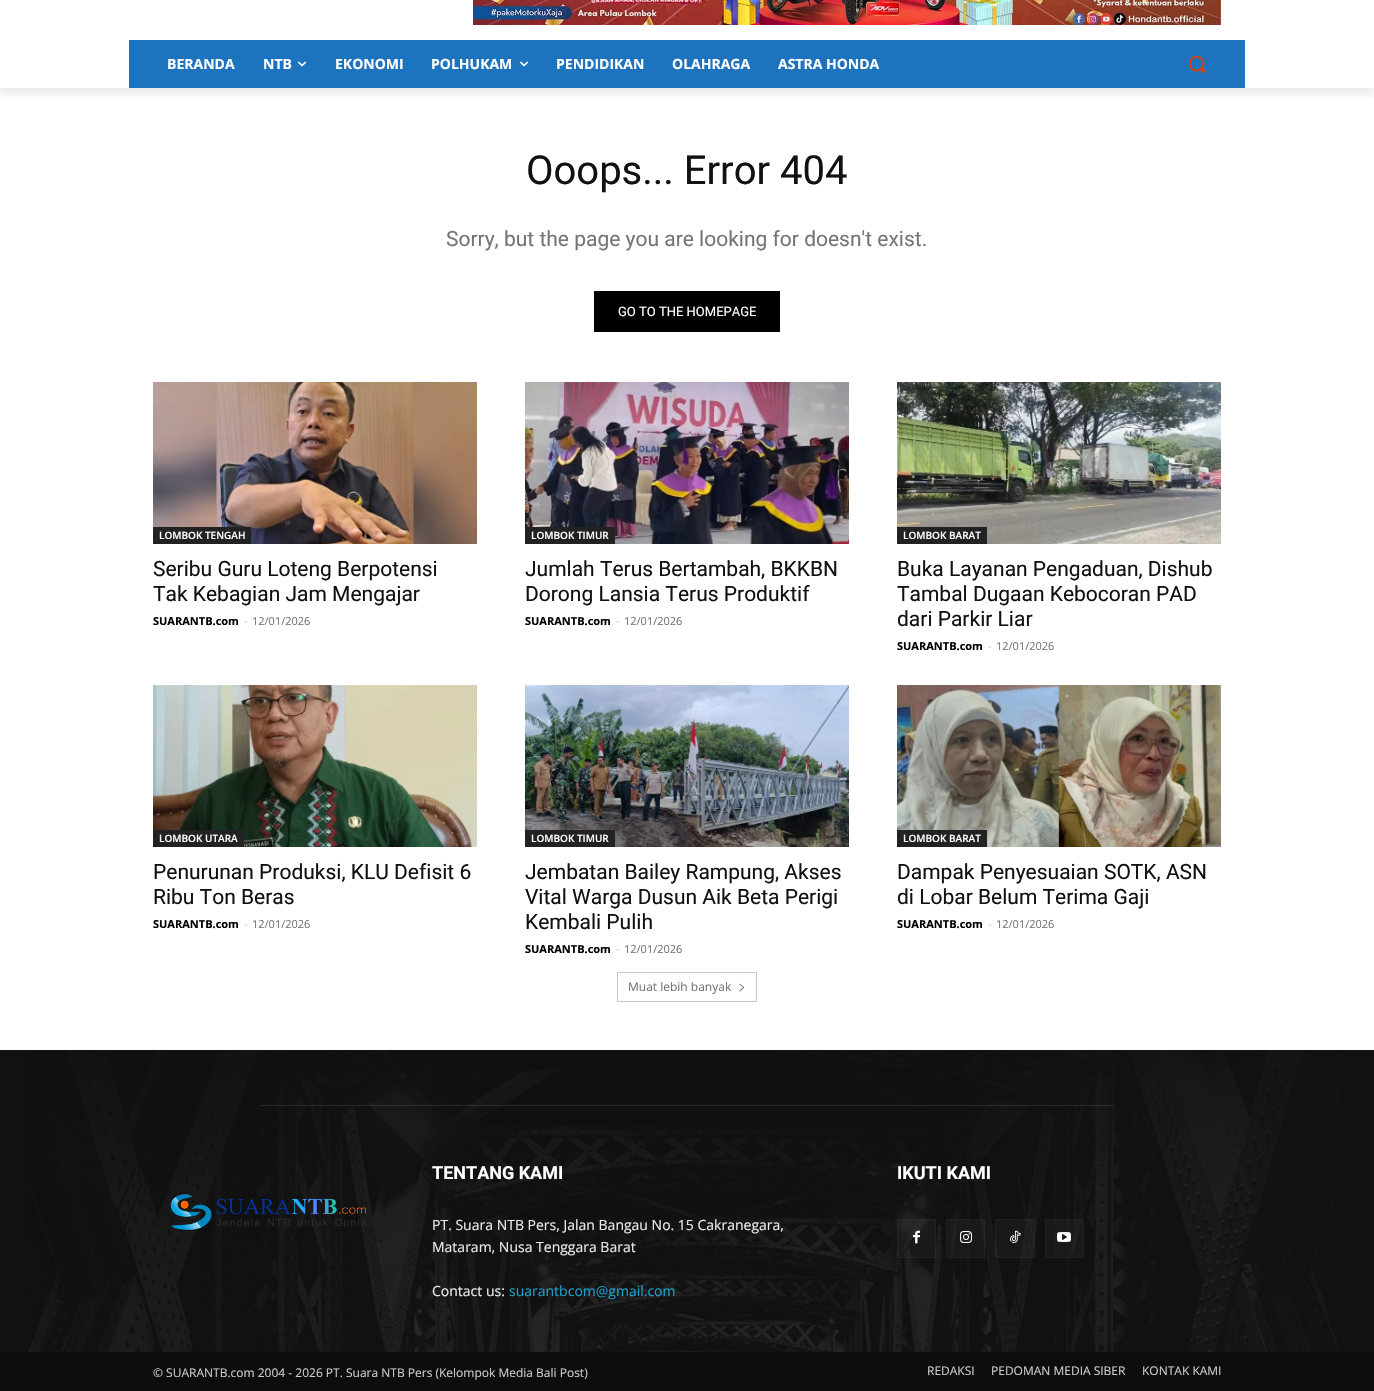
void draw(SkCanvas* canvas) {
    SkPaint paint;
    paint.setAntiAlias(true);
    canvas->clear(0xFFFFFFFF);
    canvas->drawImageRect(SkImages::DeferredFromEncodedData(SkData::MakeFromFileName("img1.png")), SkRect::MakeXYWH(473, 0, 748, 25), SkSamplingOptions());
    paint.setColor(0xFF1E73BE);
    canvas->drawRect(SkRect::MakeXYWH(129, 40, 1116, 48), paint);
    canvas->save();
    canvas->clipRect(SkRect::MakeXYWH(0, 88, 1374, 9));
    paint.setColor(0x14000000);
    paint.setMaskFilter(SkMaskFilter::MakeBlur(kNormal_SkBlurStyle, 4));
    canvas->drawRect(SkRect::MakeXYWH(0, -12, 1374, 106), paint);
    paint.setMaskFilter(nullptr);
    canvas->restore();
    SkFont font1(fontMgr->matchFamilyStyle("Open Sans", SkFontStyle::Bold()), 14);
    font1.setSubpixel(true);
    paint.setColor(0xFFFFFFFF);
    canvas->drawString("BERANDA", 167, 69, font1, paint);
    canvas->drawString("NTB", 263, 69, font1, paint);
    canvas->drawImageRect(SkImages::DeferredFromEncodedData(SkData::MakeFromFileName("img2.png")), SkRect::MakeXYWH(298, 61, 9, 6), SkSamplingOptions());
    canvas->drawString("EKONOMI", 335, 69, font1, paint);
    canvas->drawString("POLHUKAM", 431, 69, font1, paint);
    canvas->drawImageRect(SkImages::DeferredFromEncodedData(SkData::MakeFromFileName("img2.png")), SkRect::MakeXYWH(520, 61, 9, 6), SkSamplingOptions());
    canvas->drawString("PENDIDIKAN", 556, 69, font1, paint);
    canvas->drawString("OLAHRAGA", 672, 69, font1, paint);
    canvas->drawString("ASTRA HONDA", 778, 69, font1, paint);
    canvas->drawImageRect(SkImages::DeferredFromEncodedData(SkData::MakeFromFileName("img3.png")), SkRect::MakeXYWH(1188, 56, 18, 18), SkSamplingOptions());
    SkFont font2(fontMgr->matchFamilyStyle("Roboto", SkFontStyle::Normal()), 40);
    font2.setSubpixel(true);
    paint.setColor(0xFF111111);
    canvas->drawString("Ooops... Error 404", 526, 184, font2, paint);
    SkFont font3(fontMgr->matchFamilyStyle("Roboto", SkFontStyle::Normal()), 21);
    font3.setSubpixel(true);
    paint.setColor(0xFF757575);
    canvas->drawString("Sorry, but the page you are looking for doesn't exist.", 446, 246, font3, paint);
    paint.setColor(0xFF000000);
    canvas->drawRect(SkRect::MakeXYWH(594, 291, 186, 41), paint);
    SkFont font4(fontMgr->matchFamilyStyle("Roboto", SkFontStyle::Normal()), 13);
    font4.setSubpixel(true);
    paint.setColor(0xFFFFFFFF);
    canvas->drawString("GO TO THE HOMEPAGE", 618, 316, font4, paint);
    canvas->drawImageRect(SkImages::DeferredFromEncodedData(SkData::MakeFromFileName("img4.png")), SkRect::MakeXYWH(153, 382, 324, 162), SkSamplingOptions());
    paint.setColor(0xFF222222);
    canvas->drawRect(SkRect::MakeXYWH(153, 527, 98, 17), paint);
    SkFont font5(fontMgr->matchFamilyStyle("Open Sans", SkFontStyle(600, SkFontStyle::kNormal_Width, SkFontStyle::kUpright_Slant)), 10);
    font5.setSubpixel(true);
    paint.setColor(0xFFFFFFFF);
    canvas->drawString("LOMBOK TENGAH", 159, 539, font5, paint);
    paint.setColor(0xFF111111);
    canvas->drawString("Seribu Guru Loteng Berpotensi", 153, 576, font3, paint);
    canvas->drawString("Tak Kebagian Jam Mengajar", 153, 601, font3, paint);
    SkFont font6(fontMgr->matchFamilyStyle("Open Sans", SkFontStyle::Bold()), 11);
    font6.setSubpixel(true);
    paint.setColor(0xFF000000);
    canvas->drawString("SUARANTB.com", 153, 625, font6, paint);
    SkFont font7(fontMgr->matchFamilyStyle("Open Sans", SkFontStyle::Normal()), 11);
    font7.setSubpixel(true);
    paint.setColor(0xFFCCCCCC);
    canvas->drawString("-", 244, 625, font7, paint);
    paint.setColor(0xFF757575);
    canvas->drawString("12/01/2026", 252, 625, font7, paint);
    canvas->drawImageRect(SkImages::DeferredFromEncodedData(SkData::MakeFromFileName("img5.png")), SkRect::MakeXYWH(525, 382, 324, 162), SkSamplingOptions());
    paint.setColor(0xFF222222);
    canvas->drawRect(SkRect::MakeXYWH(525, 527, 90, 17), paint);
    paint.setColor(0xFFFFFFFF);
    canvas->drawString("LOMBOK TIMUR", 531, 539, font5, paint);
    paint.setColor(0xFF111111);
    canvas->drawString("Jumlah Terus Bertambah, BKKBN", 525, 576, font3, paint);
    canvas->drawString("Dorong Lansia Terus Produktif", 525, 601, font3, paint);
    paint.setColor(0xFF000000);
    canvas->drawString("SUARANTB.com", 525, 625, font6, paint);
    paint.setColor(0xFFCCCCCC);
    canvas->drawString("-", 616, 625, font7, paint);
    paint.setColor(0xFF757575);
    canvas->drawString("12/01/2026", 624, 625, font7, paint);
    canvas->drawImageRect(SkImages::DeferredFromEncodedData(SkData::MakeFromFileName("img6.png")), SkRect::MakeXYWH(897, 382, 324, 162), SkSamplingOptions());
    paint.setColor(0xFF222222);
    canvas->drawRect(SkRect::MakeXYWH(897, 527, 90, 17), paint);
    paint.setColor(0xFFFFFFFF);
    canvas->drawString("LOMBOK BARAT", 903, 539, font5, paint);
    paint.setColor(0xFF111111);
    canvas->drawString("Buka Layanan Pengaduan, Dishub", 897, 576, font3, paint);
    canvas->drawString("Tambal Dugaan Kebocoran PAD", 897, 601, font3, paint);
    canvas->drawString("dari Parkir Liar", 897, 626, font3, paint);
    paint.setColor(0xFF000000);
    canvas->drawString("SUARANTB.com", 897, 650, font6, paint);
    paint.setColor(0xFFCCCCCC);
    canvas->drawString("-", 988, 650, font7, paint);
    paint.setColor(0xFF757575);
    canvas->drawString("12/01/2026", 996, 650, font7, paint);
    canvas->drawImageRect(SkImages::DeferredFromEncodedData(SkData::MakeFromFileName("img7.png")), SkRect::MakeXYWH(153, 685, 324, 162), SkSamplingOptions());
    paint.setColor(0xFF222222);
    canvas->drawRect(SkRect::MakeXYWH(153, 830, 91, 17), paint);
    paint.setColor(0xFFFFFFFF);
    canvas->drawString("LOMBOK UTARA", 159, 842, font5, paint);
    paint.setColor(0xFF111111);
    canvas->drawString("Penurunan Produksi, KLU Defisit 6", 153, 879, font3, paint);
    canvas->drawString("Ribu Ton Beras", 153, 904, font3, paint);
    paint.setColor(0xFF000000);
    canvas->drawString("SUARANTB.com", 153, 928, font6, paint);
    paint.setColor(0xFFCCCCCC);
    canvas->drawString("-", 244, 928, font7, paint);
    paint.setColor(0xFF757575);
    canvas->drawString("12/01/2026", 252, 928, font7, paint);
    canvas->drawImageRect(SkImages::DeferredFromEncodedData(SkData::MakeFromFileName("img8.png")), SkRect::MakeXYWH(525, 685, 324, 162), SkSamplingOptions());
    paint.setColor(0xFF222222);
    canvas->drawRect(SkRect::MakeXYWH(525, 830, 90, 17), paint);
    paint.setColor(0xFFFFFFFF);
    canvas->drawString("LOMBOK TIMUR", 531, 842, font5, paint);
    paint.setColor(0xFF111111);
    canvas->drawString("Jembatan Bailey Rampung, Akses", 525, 879, font3, paint);
    canvas->drawString("Vital Warga Dusun Aik Beta Perigi", 525, 904, font3, paint);
    canvas->drawString("Kembali Pulih", 525, 929, font3, paint);
    paint.setColor(0xFF000000);
    canvas->drawString("SUARANTB.com", 525, 953, font6, paint);
    paint.setColor(0xFFCCCCCC);
    canvas->drawString("-", 616, 953, font7, paint);
    paint.setColor(0xFF757575);
    canvas->drawString("12/01/2026", 624, 953, font7, paint);
    canvas->drawImageRect(SkImages::DeferredFromEncodedData(SkData::MakeFromFileName("img9.png")), SkRect::MakeXYWH(897, 685, 324, 162), SkSamplingOptions());
    paint.setColor(0xFF222222);
    canvas->drawRect(SkRect::MakeXYWH(897, 830, 90, 17), paint);
    paint.setColor(0xFFFFFFFF);
    canvas->drawString("LOMBOK BARAT", 903, 842, font5, paint);
    paint.setColor(0xFF111111);
    canvas->drawString("Dampak Penyesuaian SOTK, ASN", 897, 879, font3, paint);
    canvas->drawString("di Lobar Belum Terima Gaji", 897, 904, font3, paint);
    paint.setColor(0xFF000000);
    canvas->drawString("SUARANTB.com", 897, 928, font6, paint);
    paint.setColor(0xFFCCCCCC);
    canvas->drawString("-", 988, 928, font7, paint);
    paint.setColor(0xFF757575);
    canvas->drawString("12/01/2026", 996, 928, font7, paint);
    paint.setStyle(SkPaint::kStroke_Style);
    paint.setStrokeWidth(1);
    paint.setColor(0xFFC9C9C9);
    canvas->drawRect(SkRect::MakeXYWH(617.5f, 972.5f, 139, 29), paint);
    SkFont font8(fontMgr->matchFamilyStyle("Open Sans", SkFontStyle::Normal()), 12);
    font8.setSubpixel(true);
    paint.setStyle(SkPaint::kFill_Style);
    paint.setColor(0xFF757575);
    canvas->drawString("Muat lebih banyak", 628, 991, font8, paint);
    canvas->drawImageRect(SkImages::DeferredFromEncodedData(SkData::MakeFromFileName("img10.png")), SkRect::MakeXYWH(739, 983, 6, 9), SkSamplingOptions());
    paint.setColor(0xFF111111);
    canvas->drawRect(SkRect::MakeXYWH(0, 1050, 1374, 302), paint);
    canvas->drawImageRect(SkImages::DeferredFromEncodedData(SkData::MakeFromFileName("img11.png")), SkRect::MakeXYWH(28, 1050, 1312, 302), SkSamplingOptions());
    paint.setColor(0x1AFFFFFF);
    canvas->drawRect(SkRect::MakeXYWH(260, 1105, 854, 1), paint);
    SkFont font9(fontMgr->matchFamilyStyle("Roboto", SkFontStyle::Bold()), 18);
    font9.setSubpixel(true);
    paint.setColor(0xFFFFFFFF);
    canvas->drawString("TENTANG KAMI", 432, 1179, font9, paint);
    SkFont font10(fontMgr->matchFamilyStyle("Open Sans", SkFontStyle::Normal()), 14);
    font10.setSubpixel(true);
    paint.setColor(0xFFEAEAEA);
    canvas->drawString("PT. Suara NTB Pers, Jalan Bangau No. 15 Cakranegara,", 432, 1230, font10, paint);
    canvas->drawString("Mataram, Nusa Tenggara Barat", 432, 1252, font10, paint);
    canvas->drawString("Contact us:", 432, 1296, font10, paint);
    paint.setColor(0xFF1AA4CE);
    canvas->drawString("suarantbcom@gmail.com", 509, 1296, font10, paint);
    paint.setColor(0xFFFFFFFF);
    canvas->drawString("IKUTI KAMI", 897, 1179, font9, paint);
    paint.setColor(0x08FFFFFF);
    canvas->drawRect(SkRect::MakeXYWH(897, 1219, 39, 39), paint);
    paint.setStyle(SkPaint::kStroke_Style);
    canvas->drawRect(SkRect::MakeXYWH(897.5f, 1219.5f, 38, 38), paint);
    canvas->drawImageRect(SkImages::DeferredFromEncodedData(SkData::MakeFromFileName("img12.png")), SkRect::MakeXYWH(913, 1230, 7, 14), SkSamplingOptions());
    paint.setStyle(SkPaint::kFill_Style);
    canvas->drawRect(SkRect::MakeXYWH(946, 1219, 39, 39), paint);
    paint.setStyle(SkPaint::kStroke_Style);
    canvas->drawRect(SkRect::MakeXYWH(946.5f, 1219.5f, 38, 38), paint);
    canvas->drawImageRect(SkImages::DeferredFromEncodedData(SkData::MakeFromFileName("img13.png")), SkRect::MakeXYWH(960, 1231, 12, 12), SkSamplingOptions());
    paint.setStyle(SkPaint::kFill_Style);
    canvas->drawRect(SkRect::MakeXYWH(995, 1219, 40, 39), paint);
    paint.setStyle(SkPaint::kStroke_Style);
    canvas->drawRect(SkRect::MakeXYWH(995.5f, 1219.5f, 39, 38), paint);
    canvas->drawImageRect(SkImages::DeferredFromEncodedData(SkData::MakeFromFileName("img14.png")), SkRect::MakeXYWH(1010, 1230, 11, 13), SkSamplingOptions());
    paint.setStyle(SkPaint::kFill_Style);
    canvas->drawRect(SkRect::MakeXYWH(1045, 1219, 39, 39), paint);
    paint.setStyle(SkPaint::kStroke_Style);
    canvas->drawRect(SkRect::MakeXYWH(1045.5f, 1219.5f, 38, 38), paint);
    canvas->drawImageRect(SkImages::DeferredFromEncodedData(SkData::MakeFromFileName("img15.png")), SkRect::MakeXYWH(1057, 1232, 14, 10), SkSamplingOptions());
    canvas->drawImageRect(SkImages::DeferredFromEncodedData(SkData::MakeFromFileName("img16.png")), SkRect::MakeXYWH(170, 1194, 196, 36), SkSamplingOptions());
    paint.setStyle(SkPaint::kFill_Style);
    paint.setColor(0xFF0D0D0D);
    canvas->drawRect(SkRect::MakeXYWH(0, 1352, 1374, 39), paint);
    paint.setColor(0xFFCCCCCC);
    canvas->drawString("© SUARANTB.com 2004 - 2026 PT. Suara NTB Pers (Kelompok Media Bali Post)", 153, 1377, font8, paint);
    canvas->drawString("REDAKSI", 927, 1375, font8, paint);
    canvas->drawString("PEDOMAN MEDIA SIBER", 991, 1375, font8, paint);
    canvas->drawString("KONTAK KAMI", 1142, 1375, font8, paint);
}
